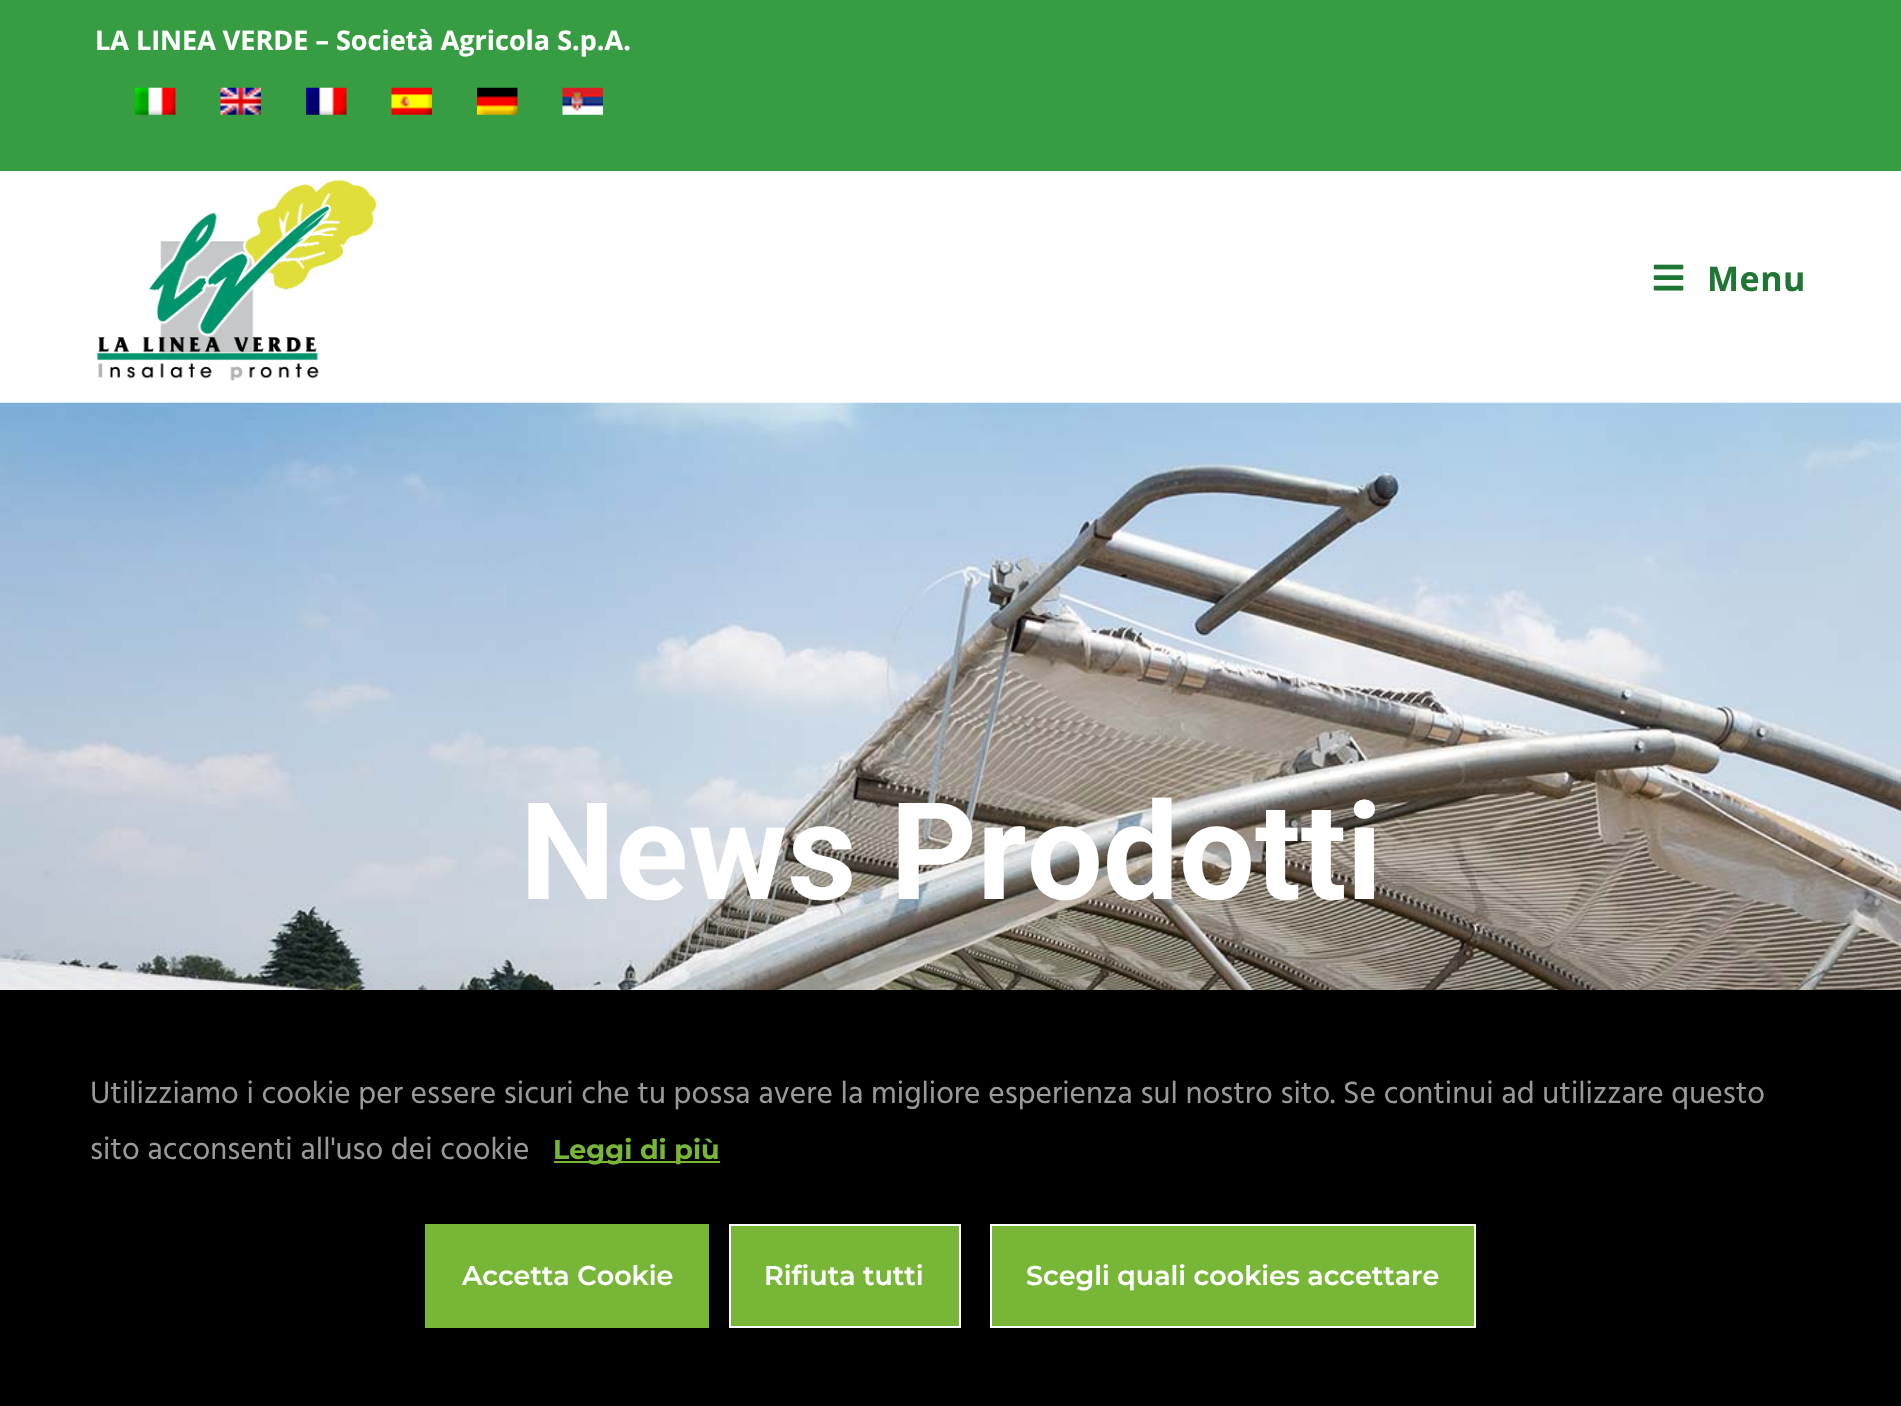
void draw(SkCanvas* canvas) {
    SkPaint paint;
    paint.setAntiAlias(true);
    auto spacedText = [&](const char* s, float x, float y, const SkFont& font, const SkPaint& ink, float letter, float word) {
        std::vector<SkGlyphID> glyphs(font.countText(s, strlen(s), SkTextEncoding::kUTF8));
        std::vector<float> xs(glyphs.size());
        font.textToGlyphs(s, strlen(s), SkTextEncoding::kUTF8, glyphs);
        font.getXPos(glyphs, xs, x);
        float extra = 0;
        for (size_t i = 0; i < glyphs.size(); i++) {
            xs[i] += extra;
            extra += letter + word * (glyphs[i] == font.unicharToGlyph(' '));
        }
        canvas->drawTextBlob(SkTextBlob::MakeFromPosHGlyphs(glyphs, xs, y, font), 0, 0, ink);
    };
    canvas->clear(0xFFFFFFFF);
    paint.setColor(0xFF379D42);
    canvas->drawRect(SkRect::MakeXYWH(0, 0, 1901, 171), paint);
    SkFont font1(fontMgr->matchFamilyStyle("Open Sans", SkFontStyle::Bold()), 27);
    font1.setSubpixel(true);
    paint.setColor(0xFFFFFFFF);
    canvas->drawString("LA LINEA VERDE – Società Agricola S.p.A.", 95, 50, font1, paint);
    canvas->drawImageRect(SkImages::DeferredFromEncodedData(SkData::MakeFromFileName("img1.png")), SkRect::MakeXYWH(135, 87, 41, 28), SkSamplingOptions());
    canvas->drawImageRect(SkImages::DeferredFromEncodedData(SkData::MakeFromFileName("img2.png")), SkRect::MakeXYWH(220, 87, 41, 28), SkSamplingOptions());
    canvas->drawImageRect(SkImages::DeferredFromEncodedData(SkData::MakeFromFileName("img3.png")), SkRect::MakeXYWH(306, 87, 41, 28), SkSamplingOptions());
    canvas->drawImageRect(SkImages::DeferredFromEncodedData(SkData::MakeFromFileName("img4.png")), SkRect::MakeXYWH(391, 87, 41, 28), SkSamplingOptions());
    canvas->drawImageRect(SkImages::DeferredFromEncodedData(SkData::MakeFromFileName("img5.png")), SkRect::MakeXYWH(477, 87, 41, 28), SkSamplingOptions());
    canvas->drawImageRect(SkImages::DeferredFromEncodedData(SkData::MakeFromFileName("img6.png")), SkRect::MakeXYWH(562, 87, 41, 28), SkSamplingOptions());
    canvas->drawImageRect(SkImages::DeferredFromEncodedData(SkData::MakeFromFileName("img7.png")), SkRect::MakeXYWH(97, 179, 280, 202), SkSamplingOptions());
    canvas->drawImageRect(SkImages::DeferredFromEncodedData(SkData::MakeFromFileName("img8.png")), SkRect::MakeXYWH(1653, 264, 31, 27), SkSamplingOptions());
    SkFont font2(fontMgr->matchFamilyStyle("Open Sans", SkFontStyle::Bold()), 34);
    font2.setSubpixel(true);
    paint.setColor(0xFF1E7632);
    spacedText("Menu", 1707, 291, font2, paint, 0.5f, 0);
    canvas->drawImageRect(SkImages::DeferredFromEncodedData(SkData::MakeFromFileName("img9.png")), SkRect::MakeXYWH(0, 402, 1901, 588), SkSamplingOptions());
    SkFont font3(fontMgr->matchFamilyStyle("Roboto", SkFontStyle::Bold()), 135);
    font3.setSubpixel(true);
    paint.setColor(0xFFFFFFFF);
    canvas->drawString("News Prodotti", 520, 899, font3, paint);
    paint.setColor(0xFF000000);
    canvas->drawRect(SkRect::MakeXYWH(0, 990, 1901, 416), paint);
    SkFont font4(fontMgr->matchFamilyStyle("Hind", SkFontStyle::Normal()), 31.5f);
    font4.setSubpixel(true);
    paint.setColor(0xFF999999);
    canvas->drawString("Utilizziamo i cookie per essere sicuri che tu possa avere la migliore esperienza sul nostro sito. Se continui ad utilizzare questo", 90, 1103, font4, paint);
    canvas->drawString("sito acconsenti all'uso dei cookie", 90, 1159, font4, paint);
    paint.setColor(0xFF78B637);
    canvas->drawRect(SkRect::MakeXYWH(554, 1161, 166, 2), paint);
    SkFont font5(fontMgr->matchFamilyStyle("Montserrat", SkFontStyle::Bold()), 27);
    font5.setSubpixel(true);
    canvas->drawString("Leggi di più", 553, 1159, font5, paint);
    canvas->drawRect(SkRect::MakeXYWH(425, 1224, 284, 104), paint);
    SkFont font6(fontMgr->matchFamilyStyle("Montserrat", SkFontStyle(600, SkFontStyle::kNormal_Width, SkFontStyle::kUpright_Slant)), 27);
    font6.setSubpixel(true);
    paint.setColor(0xFFFFFFFF);
    canvas->drawString("Accetta Cookie", 462, 1285, font6, paint);
    paint.setColor(0xFF78B637);
    canvas->drawRect(SkRect::MakeXYWH(730, 1225, 230, 102), paint);
    paint.setStyle(SkPaint::kStroke_Style);
    paint.setStrokeWidth(2);
    paint.setColor(0xFFFFFFFF);
    canvas->drawRect(SkRect::MakeXYWH(730, 1225, 230, 102), paint);
    paint.setStyle(SkPaint::kFill_Style);
    canvas->drawString("Rifiuta tutti", 764, 1285, font6, paint);
    paint.setColor(0xFF78B637);
    canvas->drawRect(SkRect::MakeXYWH(991, 1225, 484, 102), paint);
    paint.setStyle(SkPaint::kStroke_Style);
    paint.setColor(0xFFFFFFFF);
    canvas->drawRect(SkRect::MakeXYWH(991, 1225, 484, 102), paint);
    paint.setStyle(SkPaint::kFill_Style);
    canvas->drawString("Scegli quali cookies accettare", 1026, 1285, font6, paint);
}
